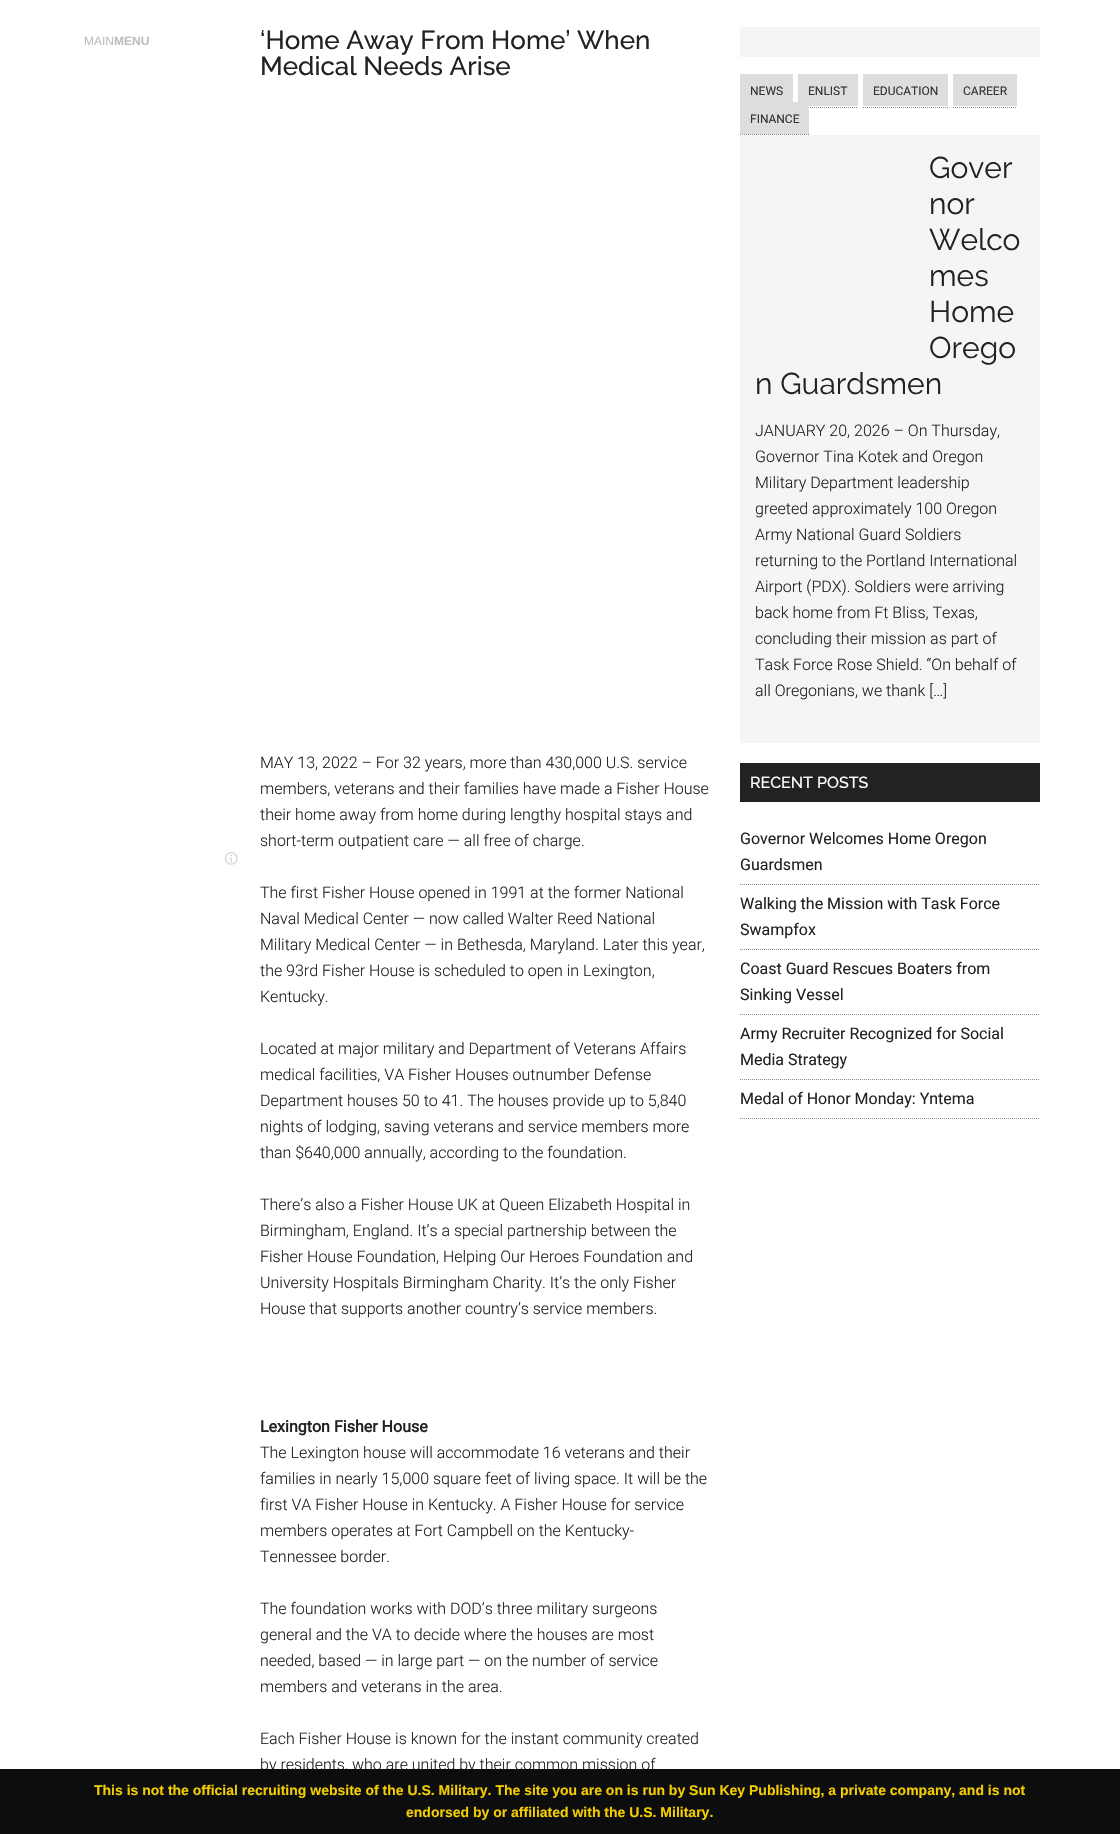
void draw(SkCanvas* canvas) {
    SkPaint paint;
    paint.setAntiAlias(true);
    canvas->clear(0xFFFFFFFF);
    SkFont font1(fontMgr->matchFamilyStyle("Liberation Sans", SkFontStyle::Normal()), 12);
    font1.setSubpixel(true);
    paint.setColor(0xFFBDBDBD);
    canvas->drawString("MAIN", 84, 45, font1, paint);
    SkFont font2(fontMgr->matchFamilyStyle("Liberation Sans", SkFontStyle::Bold()), 12);
    font2.setSubpixel(true);
    canvas->drawString("MENU", 114, 45, font2, paint);
    canvas->drawImageRect(SkImages::DeferredFromEncodedData(SkData::MakeFromFileName("img1.png")), SkRect::MakeXYWH(224, 852, 14, 13), SkSamplingOptions());
    SkFont font3(fontMgr->matchFamilyStyle("Raleway", SkFontStyle(500, SkFontStyle::kNormal_Width, SkFontStyle::kUpright_Slant)), 26);
    font3.setSubpixel(true);
    paint.setColor(0xFF222222);
    canvas->drawString("‘Home Away From Home’ When", 260, 49, font3, paint);
    canvas->drawString("Medical Needs Arise", 260, 75, font3, paint);
    SkFont font4(fontMgr->matchFamilyStyle("Roboto", SkFontStyle(300, SkFontStyle::kNormal_Width, SkFontStyle::kUpright_Slant)), 16);
    font4.setSubpixel(true);
    canvas->drawString("MAY 13, 2022 – For 32 years, more than 430,000 U.S. service", 260, 768, font4, paint);
    canvas->drawString("members, veterans and their families have made a Fisher House", 260, 794, font4, paint);
    canvas->drawString("their home away from home during lengthy hospital stays and", 260, 820, font4, paint);
    canvas->drawString("short-term outpatient care — all free of charge.", 260, 846, font4, paint);
    canvas->drawString("The first Fisher House opened in 1991 at the former National", 260, 898, font4, paint);
    canvas->drawString("Naval Medical Center — now called Walter Reed National", 260, 924, font4, paint);
    canvas->drawString("Military Medical Center — in Bethesda, Maryland. Later this year,", 260, 950, font4, paint);
    canvas->drawString("the 93rd Fisher House is scheduled to open in Lexington,", 260, 976, font4, paint);
    canvas->drawString("Kentucky.", 260, 1002, font4, paint);
    canvas->drawString("Located at major military and Department of Veterans Affairs", 260, 1054, font4, paint);
    canvas->drawString("medical facilities, VA Fisher Houses outnumber Defense", 260, 1080, font4, paint);
    canvas->drawString("Department houses 50 to 41. The houses provide up to 5,840", 260, 1106, font4, paint);
    canvas->drawString("nights of lodging, saving veterans and service members more", 260, 1132, font4, paint);
    canvas->drawString("than $640,000 annually, according to the foundation.", 260, 1158, font4, paint);
    canvas->drawString("There’s also a Fisher House UK at Queen Elizabeth Hospital in", 260, 1210, font4, paint);
    canvas->drawString("Birmingham, England. It’s a special partnership between the", 260, 1236, font4, paint);
    canvas->drawString("Fisher House Foundation, Helping Our Heroes Foundation and", 260, 1262, font4, paint);
    canvas->drawString("University Hospitals Birmingham Charity. It’s the only Fisher", 260, 1288, font4, paint);
    canvas->drawString("House that supports another country’s service members.", 260, 1314, font4, paint);
    SkFont font5(fontMgr->matchFamilyStyle("Roboto", SkFontStyle::Bold()), 16);
    font5.setSubpixel(true);
    canvas->drawString("Lexington Fisher House", 260, 1432, font5, paint);
    canvas->drawString("The Lexington house will accommodate 16 veterans and their", 260, 1458, font4, paint);
    canvas->drawString("families in nearly 15,000 square feet of living space. It will be the", 260, 1484, font4, paint);
    canvas->drawString("first VA Fisher House in Kentucky. A Fisher House for service", 260, 1510, font4, paint);
    canvas->drawString("members operates at Fort Campbell on the Kentucky-", 260, 1536, font4, paint);
    canvas->drawString("Tennessee border.", 260, 1562, font4, paint);
    canvas->drawString("The foundation works with DOD’s three military surgeons", 260, 1614, font4, paint);
    canvas->drawString("general and the VA to decide where the houses are most", 260, 1640, font4, paint);
    canvas->drawString("needed, based — in large part — on the number of service", 260, 1666, font4, paint);
    canvas->drawString("members and veterans in the area.", 260, 1692, font4, paint);
    canvas->drawString("Each Fisher House is known for the instant community created", 260, 1744, font4, paint);
    canvas->drawString("by residents, who are united by their common mission of", 260, 1770, font4, paint);
    paint.setColor(0xFFF5F5F5);
    canvas->drawRect(SkRect::MakeXYWH(740, 27, 300, 30), paint);
    paint.setColor(0xFFDDDDDD);
    canvas->drawRect(SkRect::MakeXYWH(740, 74, 53, 28), paint);
    SkFont font6(fontMgr->matchFamilyStyle("Roboto", SkFontStyle::Normal()), 12);
    font6.setSubpixel(true);
    paint.setColor(0xFF333333);
    canvas->drawString("NEWS", 750, 95, font6, paint);
    paint.setStyle(SkPaint::kStroke_Style);
    paint.setStrokeWidth(1);
    paint.setColor(0xFF888888);
    paint.setPathEffect(SkDashPathEffect::Make({{1, 1}}, 0));
    canvas->drawPath(SkPathBuilder().moveTo(798, 107.5f).lineTo(858, 107.5f).detach(), paint);
    paint.setPathEffect(nullptr);
    paint.setStyle(SkPaint::kFill_Style);
    paint.setColor(0xFFDDDDDD);
    canvas->drawRect(SkRect::MakeXYWH(798, 74, 60, 32), paint);
    paint.setColor(0xFF333333);
    canvas->drawString("ENLIST", 808, 95, font6, paint);
    paint.setStyle(SkPaint::kStroke_Style);
    paint.setColor(0xFF888888);
    paint.setPathEffect(SkDashPathEffect::Make({{1, 1}}, 0));
    canvas->drawPath(SkPathBuilder().moveTo(863, 107.5f).lineTo(948, 107.5f).detach(), paint);
    paint.setPathEffect(nullptr);
    paint.setStyle(SkPaint::kFill_Style);
    paint.setColor(0xFFDDDDDD);
    canvas->drawRect(SkRect::MakeXYWH(863, 74, 85, 32), paint);
    paint.setColor(0xFF333333);
    canvas->drawString("EDUCATION", 873, 95, font6, paint);
    paint.setStyle(SkPaint::kStroke_Style);
    paint.setColor(0xFF888888);
    paint.setPathEffect(SkDashPathEffect::Make({{1, 1}}, 0));
    canvas->drawPath(SkPathBuilder().moveTo(953, 107.5f).lineTo(1017, 107.5f).detach(), paint);
    paint.setPathEffect(nullptr);
    paint.setStyle(SkPaint::kFill_Style);
    paint.setColor(0xFFDDDDDD);
    canvas->drawRect(SkRect::MakeXYWH(953, 74, 64, 32), paint);
    paint.setColor(0xFF333333);
    canvas->drawString("CAREER", 963, 95, font6, paint);
    paint.setStyle(SkPaint::kStroke_Style);
    paint.setColor(0xFF888888);
    paint.setPathEffect(SkDashPathEffect::Make({{1, 1}}, 0));
    canvas->drawPath(SkPathBuilder().moveTo(740, 134.5f).lineTo(809, 134.5f).detach(), paint);
    paint.setPathEffect(nullptr);
    paint.setStyle(SkPaint::kFill_Style);
    paint.setColor(0xFFDDDDDD);
    canvas->drawRect(SkRect::MakeXYWH(740, 102, 69, 32), paint);
    paint.setColor(0xFF333333);
    canvas->drawString("FINANCE", 750, 123, font6, paint);
    paint.setColor(0xFFF5F5F5);
    canvas->drawRect(SkRect::MakeXYWH(740, 135, 300, 608), paint);
    SkFont font7(fontMgr->matchFamilyStyle("Raleway", SkFontStyle::Normal()), 30);
    font7.setSubpixel(true);
    paint.setColor(0xFF222222);
    canvas->drawString("Gover", 929, 178, font7, paint);
    canvas->drawString("nor", 929, 214, font7, paint);
    canvas->drawString("Welco", 929, 250, font7, paint);
    canvas->drawString("mes", 929, 286, font7, paint);
    canvas->drawString("Home", 929, 322, font7, paint);
    canvas->drawString("Orego", 929, 358, font7, paint);
    canvas->drawString("n Guardsmen", 755, 394, font7, paint);
    canvas->drawString("JANUARY 20, 2026 – On Thursday,", 755, 436, font4, paint);
    canvas->drawString("Governor Tina Kotek and Oregon", 755, 462, font4, paint);
    canvas->drawString("Military Department leadership", 755, 488, font4, paint);
    canvas->drawString("greeted approximately 100 Oregon", 755, 514, font4, paint);
    canvas->drawString("Army National Guard Soldiers", 755, 540, font4, paint);
    canvas->drawString("returning to the Portland International", 755, 566, font4, paint);
    canvas->drawString("Airport (PDX). Soldiers were arriving", 755, 592, font4, paint);
    canvas->drawString("back home from Ft Bliss, Texas,", 755, 618, font4, paint);
    canvas->drawString("concluding their mission as part of", 755, 644, font4, paint);
    canvas->drawString("Task Force Rose Shield. “On behalf of", 755, 670, font4, paint);
    canvas->drawString("all Oregonians, we thank […]", 755, 696, font4, paint);
    canvas->drawRect(SkRect::MakeXYWH(740, 763, 300, 39), paint);
    SkFont font8(fontMgr->matchFamilyStyle("Raleway", SkFontStyle(500, SkFontStyle::kNormal_Width, SkFontStyle::kUpright_Slant)), 16);
    font8.setSubpixel(true);
    paint.setColor(0xFFFFFFFF);
    canvas->drawString("RECENT POSTS", 750, 788, font8, paint);
    paint.setStyle(SkPaint::kStroke_Style);
    paint.setColor(0xFF888888);
    paint.setPathEffect(SkDashPathEffect::Make({{1, 1}}, 0));
    canvas->drawPath(SkPathBuilder().moveTo(740, 884.5f).lineTo(1040, 884.5f).detach(), paint);
    paint.setPathEffect(nullptr);
    SkFont font9(fontMgr->matchFamilyStyle("Roboto", SkFontStyle::Normal()), 16);
    font9.setSubpixel(true);
    paint.setStyle(SkPaint::kFill_Style);
    paint.setColor(0xFF222222);
    canvas->drawString("Governor Welcomes Home Oregon", 740, 844, font9, paint);
    canvas->drawString("Guardsmen", 740, 870, font9, paint);
    paint.setStyle(SkPaint::kStroke_Style);
    paint.setColor(0xFF888888);
    paint.setPathEffect(SkDashPathEffect::Make({{1, 1}}, 0));
    canvas->drawPath(SkPathBuilder().moveTo(740, 949.5f).lineTo(1040, 949.5f).detach(), paint);
    paint.setPathEffect(nullptr);
    paint.setStyle(SkPaint::kFill_Style);
    paint.setColor(0xFF222222);
    canvas->drawString("Walking the Mission with Task Force", 740, 909, font9, paint);
    canvas->drawString("Swampfox", 740, 935, font9, paint);
    paint.setStyle(SkPaint::kStroke_Style);
    paint.setColor(0xFF888888);
    paint.setPathEffect(SkDashPathEffect::Make({{1, 1}}, 0));
    canvas->drawPath(SkPathBuilder().moveTo(740, 1014.5f).lineTo(1040, 1014.5f).detach(), paint);
    paint.setPathEffect(nullptr);
    paint.setStyle(SkPaint::kFill_Style);
    paint.setColor(0xFF222222);
    canvas->drawString("Coast Guard Rescues Boaters from", 740, 974, font9, paint);
    canvas->drawString("Sinking Vessel", 740, 1000, font9, paint);
    paint.setStyle(SkPaint::kStroke_Style);
    paint.setColor(0xFF888888);
    paint.setPathEffect(SkDashPathEffect::Make({{1, 1}}, 0));
    canvas->drawPath(SkPathBuilder().moveTo(740, 1079.5f).lineTo(1040, 1079.5f).detach(), paint);
    paint.setPathEffect(nullptr);
    paint.setStyle(SkPaint::kFill_Style);
    paint.setColor(0xFF222222);
    canvas->drawString("Army Recruiter Recognized for Social", 740, 1039, font9, paint);
    canvas->drawString("Media Strategy", 740, 1065, font9, paint);
    paint.setStyle(SkPaint::kStroke_Style);
    paint.setColor(0xFF888888);
    paint.setPathEffect(SkDashPathEffect::Make({{1, 1}}, 0));
    canvas->drawPath(SkPathBuilder().moveTo(740, 1118.5f).lineTo(1040, 1118.5f).detach(), paint);
    paint.setPathEffect(nullptr);
    paint.setStyle(SkPaint::kFill_Style);
    paint.setColor(0xFF222222);
    canvas->drawString("Medal of Honor Monday: Yntema", 740, 1104, font9, paint);
    paint.setColor(0xF2000000);
    canvas->drawRect(SkRect::MakeXYWH(0, 1769, 1120, 65), paint);
    SkFont font10(fontMgr->matchFamilyStyle("Liberation Sans", SkFontStyle::Bold()), 14);
    font10.setSubpixel(true);
    paint.setColor(0xFFF3CD01);
    canvas->drawString("This is not the official recruiting website of the U.S. Military. The site you are on is run by Sun Key Publishing, a private company, and is not", 94, 1795, font10, paint);
    canvas->drawString("endorsed by or affiliated with the U.S. Military.", 406, 1817, font10, paint);
}
